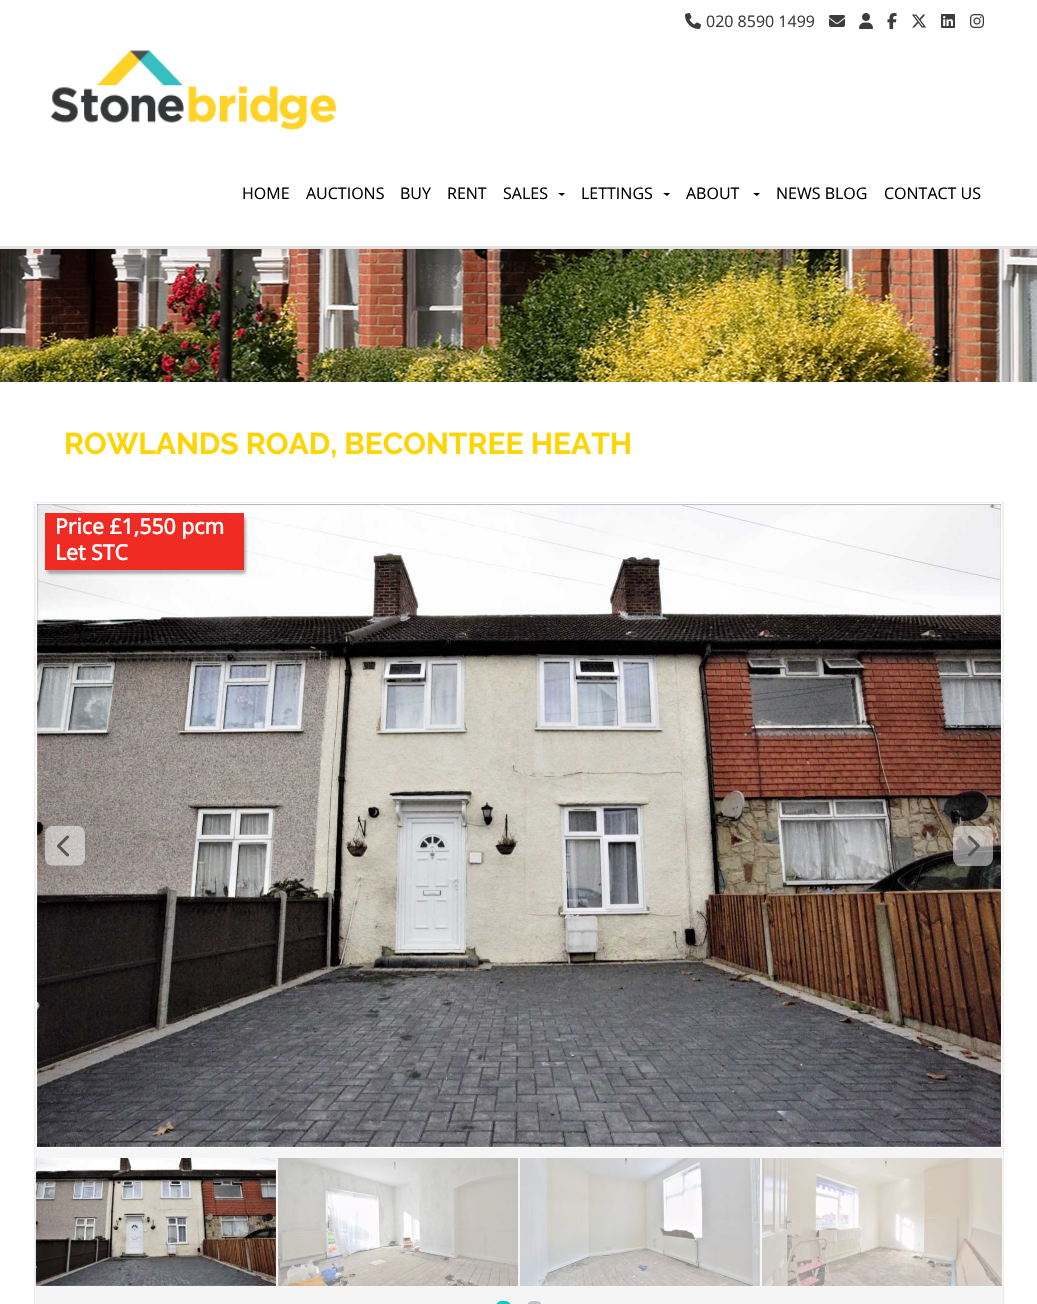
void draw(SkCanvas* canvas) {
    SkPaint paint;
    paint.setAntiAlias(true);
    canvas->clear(0xFFFFFFFF);
    canvas->drawImageRect(SkImages::DeferredFromEncodedData(SkData::MakeFromFileName("img1.png")), SkRect::MakeXYWH(685, 13, 16, 16), SkSamplingOptions());
    SkFont font1(fontMgr->matchFamilyStyle("Open Sans", SkFontStyle::Normal()), 16);
    font1.setSubpixel(true);
    paint.setColor(0xFF3C3C3C);
    canvas->drawString("020 8590 1499", 706, 27, font1, paint);
    canvas->drawImageRect(SkImages::DeferredFromEncodedData(SkData::MakeFromFileName("img2.png")), SkRect::MakeXYWH(829, 15, 16, 12), SkSamplingOptions());
    canvas->drawImageRect(SkImages::DeferredFromEncodedData(SkData::MakeFromFileName("img3.png")), SkRect::MakeXYWH(859, 13, 14, 16), SkSamplingOptions());
    canvas->drawImageRect(SkImages::DeferredFromEncodedData(SkData::MakeFromFileName("img4.png")), SkRect::MakeXYWH(887, 13, 10, 16), SkSamplingOptions());
    canvas->drawImageRect(SkImages::DeferredFromEncodedData(SkData::MakeFromFileName("img5.png")), SkRect::MakeXYWH(912, 14, 15, 14), SkSamplingOptions());
    canvas->drawImageRect(SkImages::DeferredFromEncodedData(SkData::MakeFromFileName("img6.png")), SkRect::MakeXYWH(941, 14, 14, 14), SkSamplingOptions());
    canvas->drawImageRect(SkImages::DeferredFromEncodedData(SkData::MakeFromFileName("img7.png")), SkRect::MakeXYWH(970, 14, 14, 14), SkSamplingOptions());
    canvas->drawImageRect(SkImages::DeferredFromEncodedData(SkData::MakeFromFileName("img8.png")), SkRect::MakeXYWH(51, 50, 286, 80), SkSamplingOptions());
    paint.setColor(0xFF000000);
    canvas->drawString("HOME", 242, 199, font1, paint);
    canvas->drawString("AUCTIONS", 306, 199, font1, paint);
    canvas->drawString("BUY", 400, 199, font1, paint);
    canvas->drawString("RENT", 447, 199, font1, paint);
    canvas->drawString("SALES", 503, 199, font1, paint);
    canvas->drawPath(SkPathBuilder().moveTo(558, 193).lineTo(565, 193).lineTo(562, 196).close().detach(), paint);
    canvas->drawString("LETTINGS", 581, 199, font1, paint);
    canvas->drawPath(SkPathBuilder().moveTo(663, 193).lineTo(670, 193).lineTo(667, 196).close().detach(), paint);
    canvas->drawString("ABOUT", 686, 199, font1, paint);
    canvas->drawPath(SkPathBuilder().moveTo(753, 193).lineTo(760, 193).lineTo(757, 196).close().detach(), paint);
    canvas->drawString("NEWS BLOG", 776, 199, font1, paint);
    canvas->drawString("CONTACT US", 884, 199, font1, paint);
    paint.setColor(0xFFE3E3E3);
    canvas->drawRect(SkRect::MakeXYWH(0, 246, 1037, 3), paint);
    canvas->drawImageRect(SkImages::DeferredFromEncodedData(SkData::MakeFromFileName("img9.png")), SkRect::MakeXYWH(0, 249, 1037, 133), SkSamplingOptions());
    SkFont font2(fontMgr->matchFamilyStyle("Raleway", SkFontStyle::Bold()), 30);
    font2.setSubpixel(true);
    paint.setColor(0xFFFFD403);
    canvas->drawString("ROWLANDS ROAD, BECONTREE HEATH", 64, 454, font2, paint);
    paint.setColor(0xFFF5F5F5);
    canvas->drawRect(SkRect::MakeXYWH(34.5f, 502.5f, 969, 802), paint);
    paint.setStyle(SkPaint::kStroke_Style);
    paint.setStrokeWidth(1);
    paint.setColor(0xFFEDEDED);
    canvas->drawRect(SkRect::MakeXYWH(34.5f, 502.5f, 969, 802), paint);
    paint.setStyle(SkPaint::kFill_Style);
    paint.setColor(0xFFFFFFFF);
    canvas->drawRect(SkRect::MakeXYWH(36, 503, 966, 645), paint);
    canvas->drawImageRect(SkImages::DeferredFromEncodedData(SkData::MakeFromFileName("img10.png")), SkRect::MakeXYWH(37, 504, 964, 643), SkSamplingOptions());
    paint.setColor(0x80FFFFFF);
    canvas->drawRoundRect(SkRect::MakeXYWH(45, 826, 40, 40), 8, 8, paint);
    paint.setColor(0x26000000);
    canvas->drawRect(SkRect::MakeXYWH(49, 865, 32, 1), paint);
    canvas->drawImageRect(SkImages::DeferredFromEncodedData(SkData::MakeFromFileName("img11.png")), SkRect::MakeXYWH(57, 835, 12, 22), SkSamplingOptions());
    paint.setColor(0x80FFFFFF);
    canvas->drawRoundRect(SkRect::MakeXYWH(953, 826, 40, 40), 8, 8, paint);
    canvas->drawImageRect(SkImages::DeferredFromEncodedData(SkData::MakeFromFileName("img12.png")), SkRect::MakeXYWH(968, 835, 12, 22), SkSamplingOptions());
    paint.setColor(0x4D000000);
    paint.setMaskFilter(SkMaskFilter::MakeBlur(kNormal_SkBlurStyle, 1.5f));
    canvas->drawRoundRect(SkRect::MakeXYWH(47, 517, 199, 57), 4, 4, paint);
    paint.setMaskFilter(nullptr);
    paint.setColor(0xFFF02B24);
    canvas->drawRect(SkRect::MakeXYWH(45, 513, 199, 57), paint);
    SkFont font3(fontMgr->matchFamilyStyle("Open Sans", SkFontStyle::Bold()), 21.25f);
    font3.setSubpixel(true);
    paint.setColor(0xFFFFFFFF);
    canvas->drawString("Price £1,550 pcm", 55, 534, font3, paint);
    canvas->drawString("Let STC", 55, 560, font3, paint);
    canvas->drawImageRect(SkImages::DeferredFromEncodedData(SkData::MakeFromFileName("img13.png")), SkRect::MakeXYWH(35, 1158, 241, 128), SkSamplingOptions());
    canvas->drawImageRect(SkImages::DeferredFromEncodedData(SkData::MakeFromFileName("img14.png")), SkRect::MakeXYWH(278, 1158, 240, 128), SkSamplingOptions());
    canvas->drawImageRect(SkImages::DeferredFromEncodedData(SkData::MakeFromFileName("img15.png")), SkRect::MakeXYWH(520, 1158, 240, 128), SkSamplingOptions());
    canvas->drawImageRect(SkImages::DeferredFromEncodedData(SkData::MakeFromFileName("img16.png")), SkRect::MakeXYWH(762, 1158, 240, 128), SkSamplingOptions());
    paint.setColor(0xFF0ACCCC);
    canvas->drawRoundRect(SkRect::MakeXYWH(496, 1301, 15, 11), 7.5f, 7.5f, paint);
    paint.setColor(0xFFBFC4C8);
    canvas->drawRoundRect(SkRect::MakeXYWH(527, 1301, 15, 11), 7.5f, 7.5f, paint);
}
